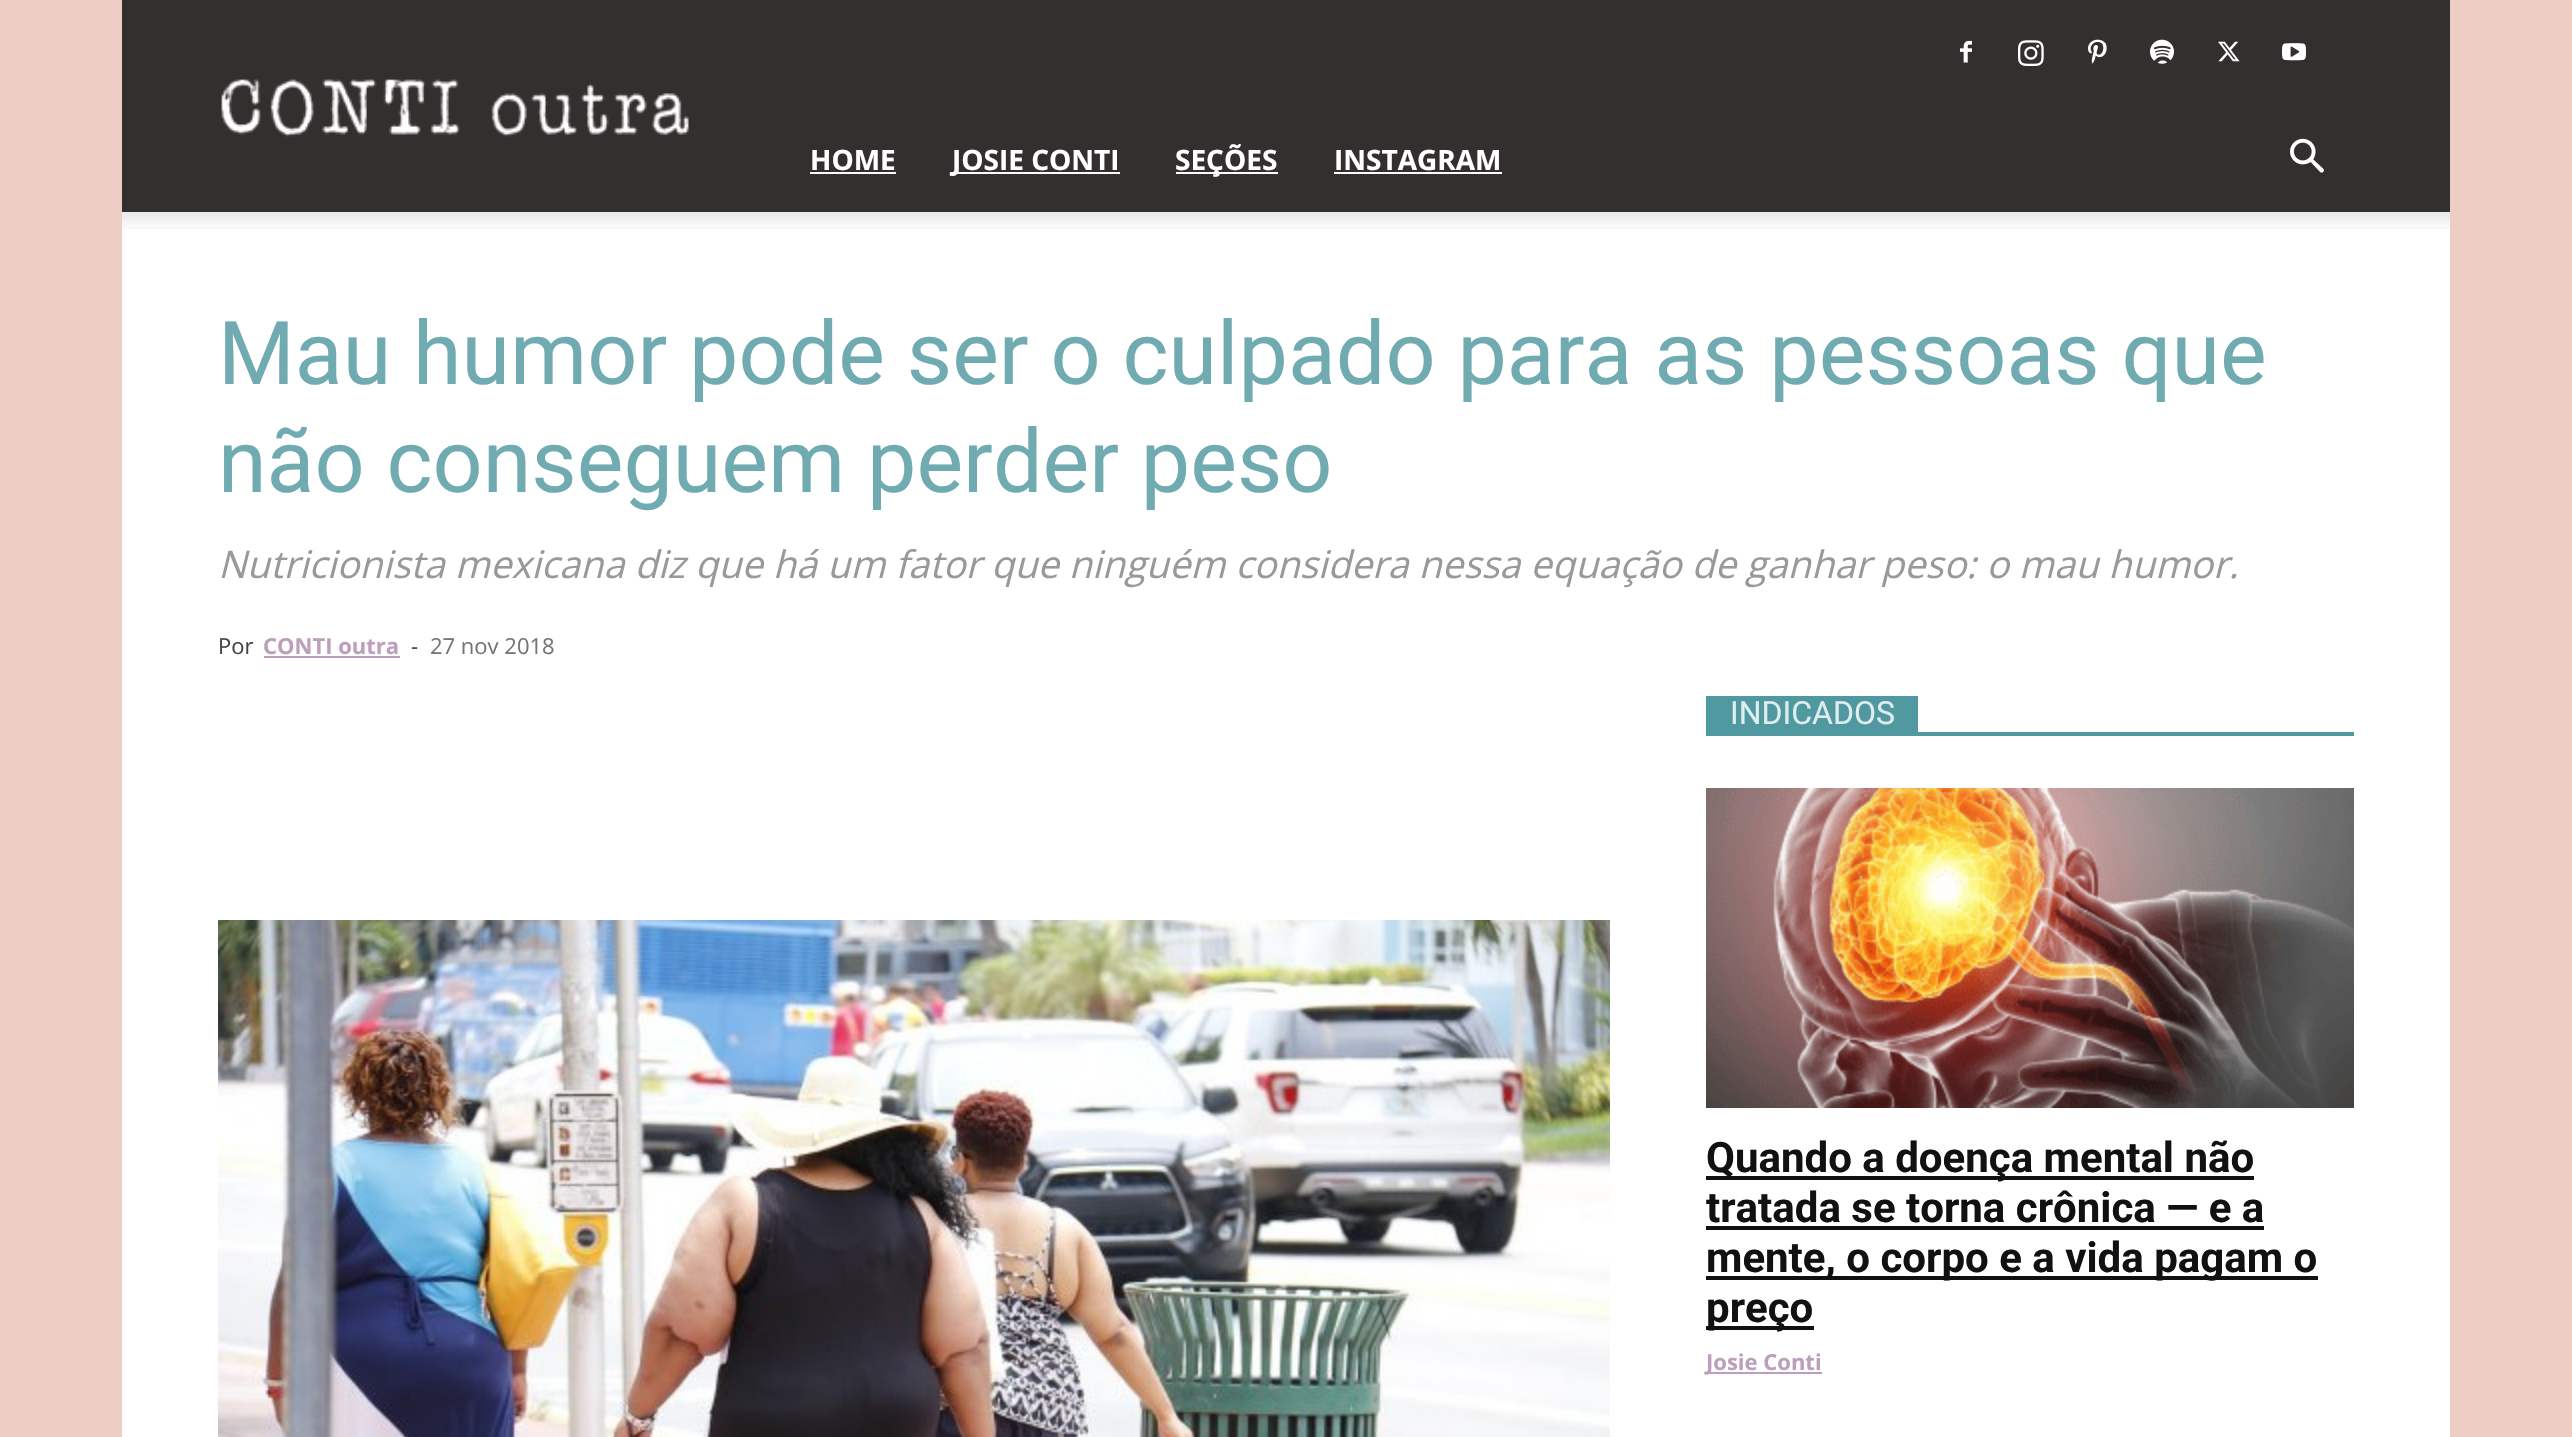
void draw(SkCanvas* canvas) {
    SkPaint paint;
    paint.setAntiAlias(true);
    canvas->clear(0xFFEECEC4);
    paint.setColor(0xFF342F2F);
    canvas->drawRect(SkRect::MakeXYWH(122, 0, 2328, 212), paint);
    canvas->drawImageRect(SkImages::DeferredFromEncodedData(SkData::MakeFromFileName("img1.png")), SkRect::MakeXYWH(1960, 40, 12, 23), SkSamplingOptions());
    canvas->drawImageRect(SkImages::DeferredFromEncodedData(SkData::MakeFromFileName("img2.png")), SkRect::MakeXYWH(2018, 40, 26, 26), SkSamplingOptions());
    canvas->drawImageRect(SkImages::DeferredFromEncodedData(SkData::MakeFromFileName("img3.png")), SkRect::MakeXYWH(2088, 39, 19, 25), SkSamplingOptions());
    canvas->drawImageRect(SkImages::DeferredFromEncodedData(SkData::MakeFromFileName("img4.png")), SkRect::MakeXYWH(2150, 39, 24, 25), SkSamplingOptions());
    canvas->drawImageRect(SkImages::DeferredFromEncodedData(SkData::MakeFromFileName("img5.png")), SkRect::MakeXYWH(2218, 41, 22, 21), SkSamplingOptions());
    canvas->drawImageRect(SkImages::DeferredFromEncodedData(SkData::MakeFromFileName("img6.png")), SkRect::MakeXYWH(2282, 43, 24, 18), SkSamplingOptions());
    canvas->drawImageRect(SkImages::DeferredFromEncodedData(SkData::MakeFromFileName("img7.png")), SkRect::MakeXYWH(221, 79, 468, 58), SkSamplingOptions());
    SkFont font1(fontMgr->matchFamilyStyle("Open Sans", SkFontStyle::Bold()), 28);
    font1.setSubpixel(true);
    paint.setColor(0xFFFFFFFF);
    canvas->drawString("HOME", 810, 170, font1, paint);
    canvas->drawRect(SkRect::MakeXYWH(810, 172, 86, 2), paint);
    canvas->drawRect(SkRect::MakeXYWH(952, 172, 168, 2), paint);
    canvas->drawString("JOSIE CONTI", 952, 170, font1, paint);
    canvas->drawRect(SkRect::MakeXYWH(1176, 172, 102, 2), paint);
    canvas->drawString("SEÇÕES", 1175, 170, font1, paint);
    canvas->drawString("INSTAGRAM", 1334, 170, font1, paint);
    canvas->drawRect(SkRect::MakeXYWH(1334, 172, 168, 2), paint);
    canvas->drawImageRect(SkImages::DeferredFromEncodedData(SkData::MakeFromFileName("img8.png")), SkRect::MakeXYWH(2290, 138, 34, 35), SkSamplingOptions());
    canvas->drawRect(SkRect::MakeXYWH(122, 212, 2328, 1225), paint);
    canvas->drawImageRect(SkImages::DeferredFromEncodedData(SkData::MakeFromFileName("img9.png")), SkRect::MakeXYWH(122, 212, 2328, 17), SkSamplingOptions());
    SkFont font2(fontMgr->matchFamilyStyle("Roboto", SkFontStyle::Normal()), 88);
    font2.setSubpixel(true);
    paint.setColor(0xFF70ABB1);
    canvas->drawString("Mau humor pode ser o culpado para as pessoas que", 218, 384, font2, paint);
    canvas->drawString("não conseguem perder peso", 218, 492, font2, paint);
    SkFont font3(fontMgr->matchFamilyStyle("Open Sans", SkFontStyle::Italic()), 38);
    font3.setSubpixel(true);
    paint.setColor(0xFF999999);
    canvas->drawString("Nutricionista mexicana diz que há um fator que ninguém considera nessa equação de ganhar peso: o mau humor.", 218, 578, font3, paint);
    SkFont font4(fontMgr->matchFamilyStyle("Open Sans", SkFontStyle::Normal()), 22);
    font4.setSubpixel(true);
    paint.setColor(0xFF444444);
    canvas->drawString("Por", 218, 654, font4, paint);
    SkFont font5(fontMgr->matchFamilyStyle("Open Sans", SkFontStyle::Bold()), 22);
    font5.setSubpixel(true);
    paint.setColor(0xFFBC9FBB);
    canvas->drawString("CONTI outra", 263, 654, font5, paint);
    canvas->drawRect(SkRect::MakeXYWH(264, 656, 136, 2), paint);
    paint.setColor(0xFF444444);
    canvas->drawString("-", 411, 654, font4, paint);
    paint.setColor(0xFF767676);
    canvas->drawString("27 nov 2018", 430, 654, font4, paint);
    canvas->drawImageRect(SkImages::DeferredFromEncodedData(SkData::MakeFromFileName("img10.png")), SkRect::MakeXYWH(218, 920, 1392, 517), SkSamplingOptions());
    paint.setColor(0xFF5099A0);
    canvas->drawRect(SkRect::MakeXYWH(1706, 732, 648, 4), paint);
    canvas->drawRect(SkRect::MakeXYWH(1706, 696, 212, 36), paint);
    SkFont font6(fontMgr->matchFamilyStyle("Roboto", SkFontStyle::Normal()), 32);
    font6.setSubpixel(true);
    paint.setColor(0xFFE0EDEE);
    canvas->drawString("INDICADOS", 1730, 724, font6, paint);
    canvas->drawImageRect(SkImages::DeferredFromEncodedData(SkData::MakeFromFileName("img11.png")), SkRect::MakeXYWH(1706, 788, 648, 320), SkSamplingOptions());
    paint.setColor(0xFF111111);
    canvas->drawRect(SkRect::MakeXYWH(1706, 1176, 548, 4), paint);
    SkFont font7(fontMgr->matchFamilyStyle("Roboto", SkFontStyle::Bold()), 42);
    font7.setSubpixel(true);
    canvas->drawString("Quando a doença mental não", 1706, 1172, font7, paint);
    canvas->drawString("tratada se torna crônica — e a", 1706, 1222, font7, paint);
    canvas->drawRect(SkRect::MakeXYWH(1706, 1226, 558, 4), paint);
    canvas->drawRect(SkRect::MakeXYWH(1706, 1276, 612, 4), paint);
    canvas->drawString("mente, o corpo e a vida pagam o", 1706, 1272, font7, paint);
    canvas->drawRect(SkRect::MakeXYWH(1706, 1326, 108, 4), paint);
    canvas->drawString("preço", 1706, 1322, font7, paint);
    paint.setColor(0xFFBC9FBB);
    canvas->drawRect(SkRect::MakeXYWH(1706, 1372, 116, 2), paint);
    canvas->drawString("Josie Conti", 1706, 1370, font5, paint);
}
